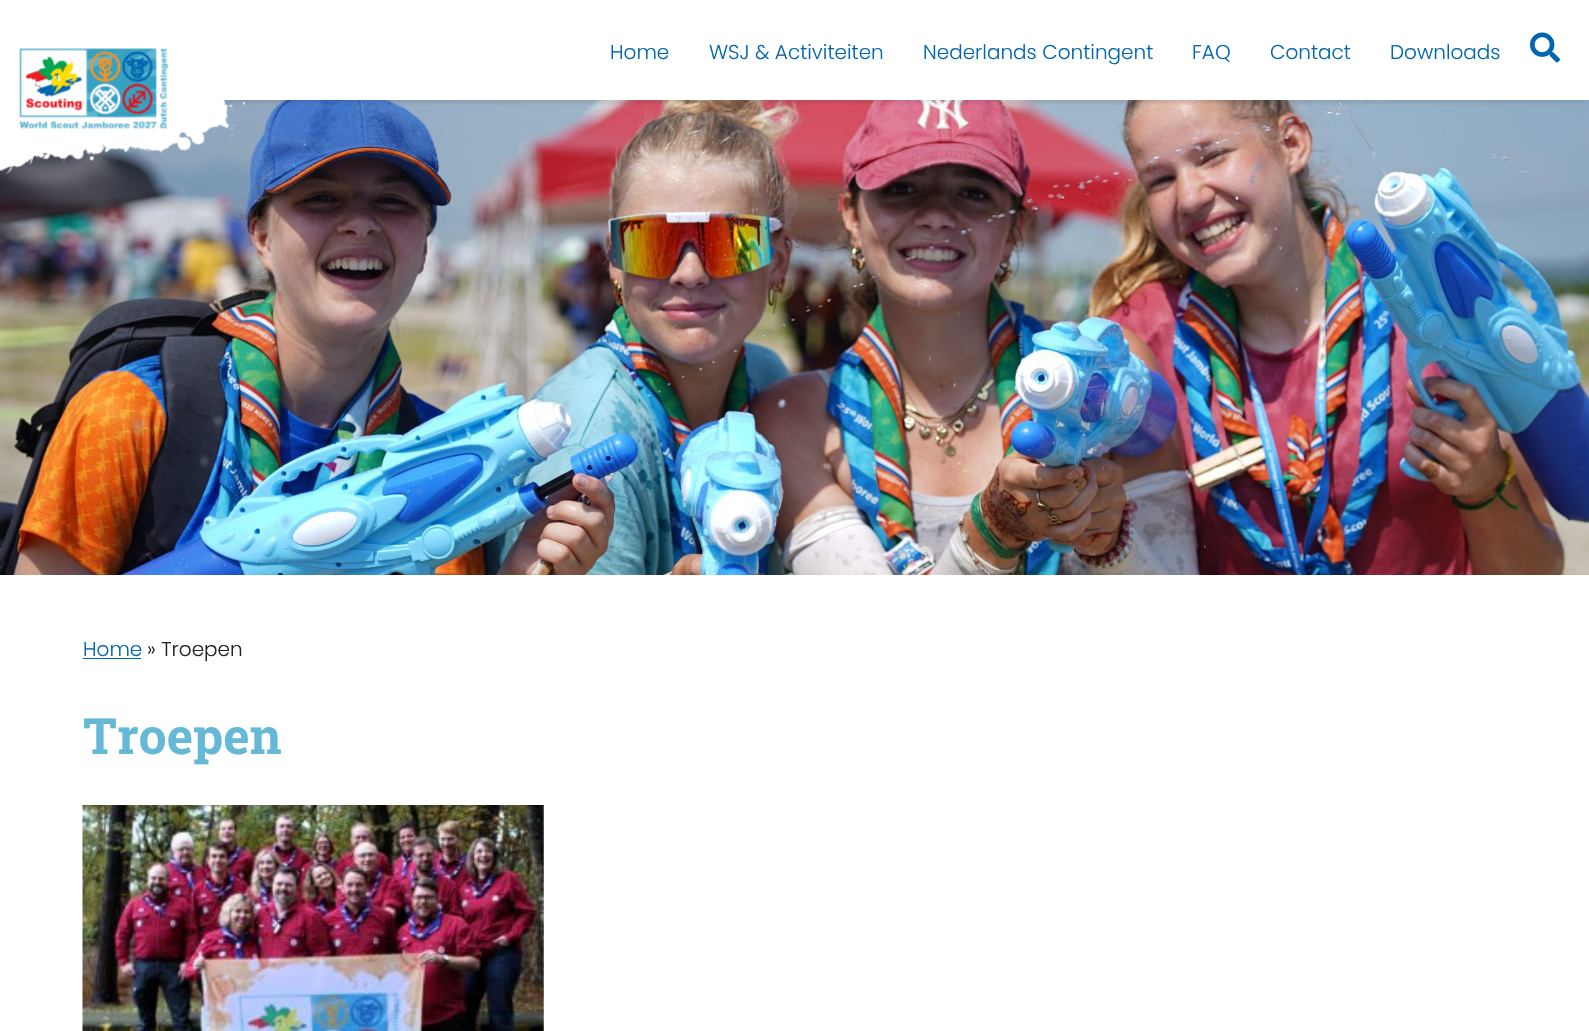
void draw(SkCanvas* canvas) {
    SkPaint paint;
    paint.setAntiAlias(true);
    canvas->clear(0xFFFFFFFF);
    canvas->drawImageRect(SkImages::DeferredFromEncodedData(SkData::MakeFromFileName("img3.png")), SkRect::MakeXYWH(0, 100, 1589, 475), SkSamplingOptions());
    canvas->save();
    canvas->clipRect(SkRect::MakeXYWH(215, 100, 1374, 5));
    paint.setColor(0x80000000);
    paint.setMaskFilter(SkMaskFilter::MakeBlur(kNormal_SkBlurStyle, 6));
    canvas->drawRect(SkRect::MakeXYWH(6, 8, 1578, 87), paint);
    paint.setMaskFilter(nullptr);
    canvas->restore();
    canvas->drawImageRect(SkImages::DeferredFromEncodedData(SkData::MakeFromFileName("img1.png")), SkRect::MakeXYWH(0, 48, 245, 127), SkSamplingOptions());
    SkFont font1(fontMgr->matchFamilyStyle("Poppins", SkFontStyle(300, SkFontStyle::kNormal_Width, SkFontStyle::kUpright_Slant)), 20);
    font1.setSubpixel(true);
    paint.setColor(0xFF0066B2);
    canvas->drawString("Home", 610, 59, font1, paint);
    canvas->drawString("WSJ & Activiteiten", 709, 59, font1, paint);
    canvas->drawString("Nederlands Contingent", 923, 59, font1, paint);
    canvas->drawString("FAQ", 1192, 59, font1, paint);
    canvas->drawString("Contact", 1270, 59, font1, paint);
    canvas->drawString("Downloads", 1390, 59, font1, paint);
    canvas->drawImageRect(SkImages::DeferredFromEncodedData(SkData::MakeFromFileName("img2.png")), SkRect::MakeXYWH(1530, 32, 30, 31), SkSamplingOptions());
    canvas->drawString("Home", 83, 656, font1, paint);
    canvas->drawRect(SkRect::MakeXYWH(83, 658, 58, 1), paint);
    paint.setColor(0xFF222222);
    canvas->drawString("» Troepen", 147, 656, font1, paint);
    SkFont font2(fontMgr->matchFamilyStyle("Roboto Slab", SkFontStyle::Bold()), 50);
    font2.setSubpixel(true);
    paint.setColor(0xFF66B8D7);
    canvas->drawString("Troepen", 83, 754, font2, paint);
    canvas->drawImageRect(SkImages::DeferredFromEncodedData(SkData::MakeFromFileName("img4.png")), SkRect::MakeXYWH(82, 805, 462, 226), SkSamplingOptions());
}
